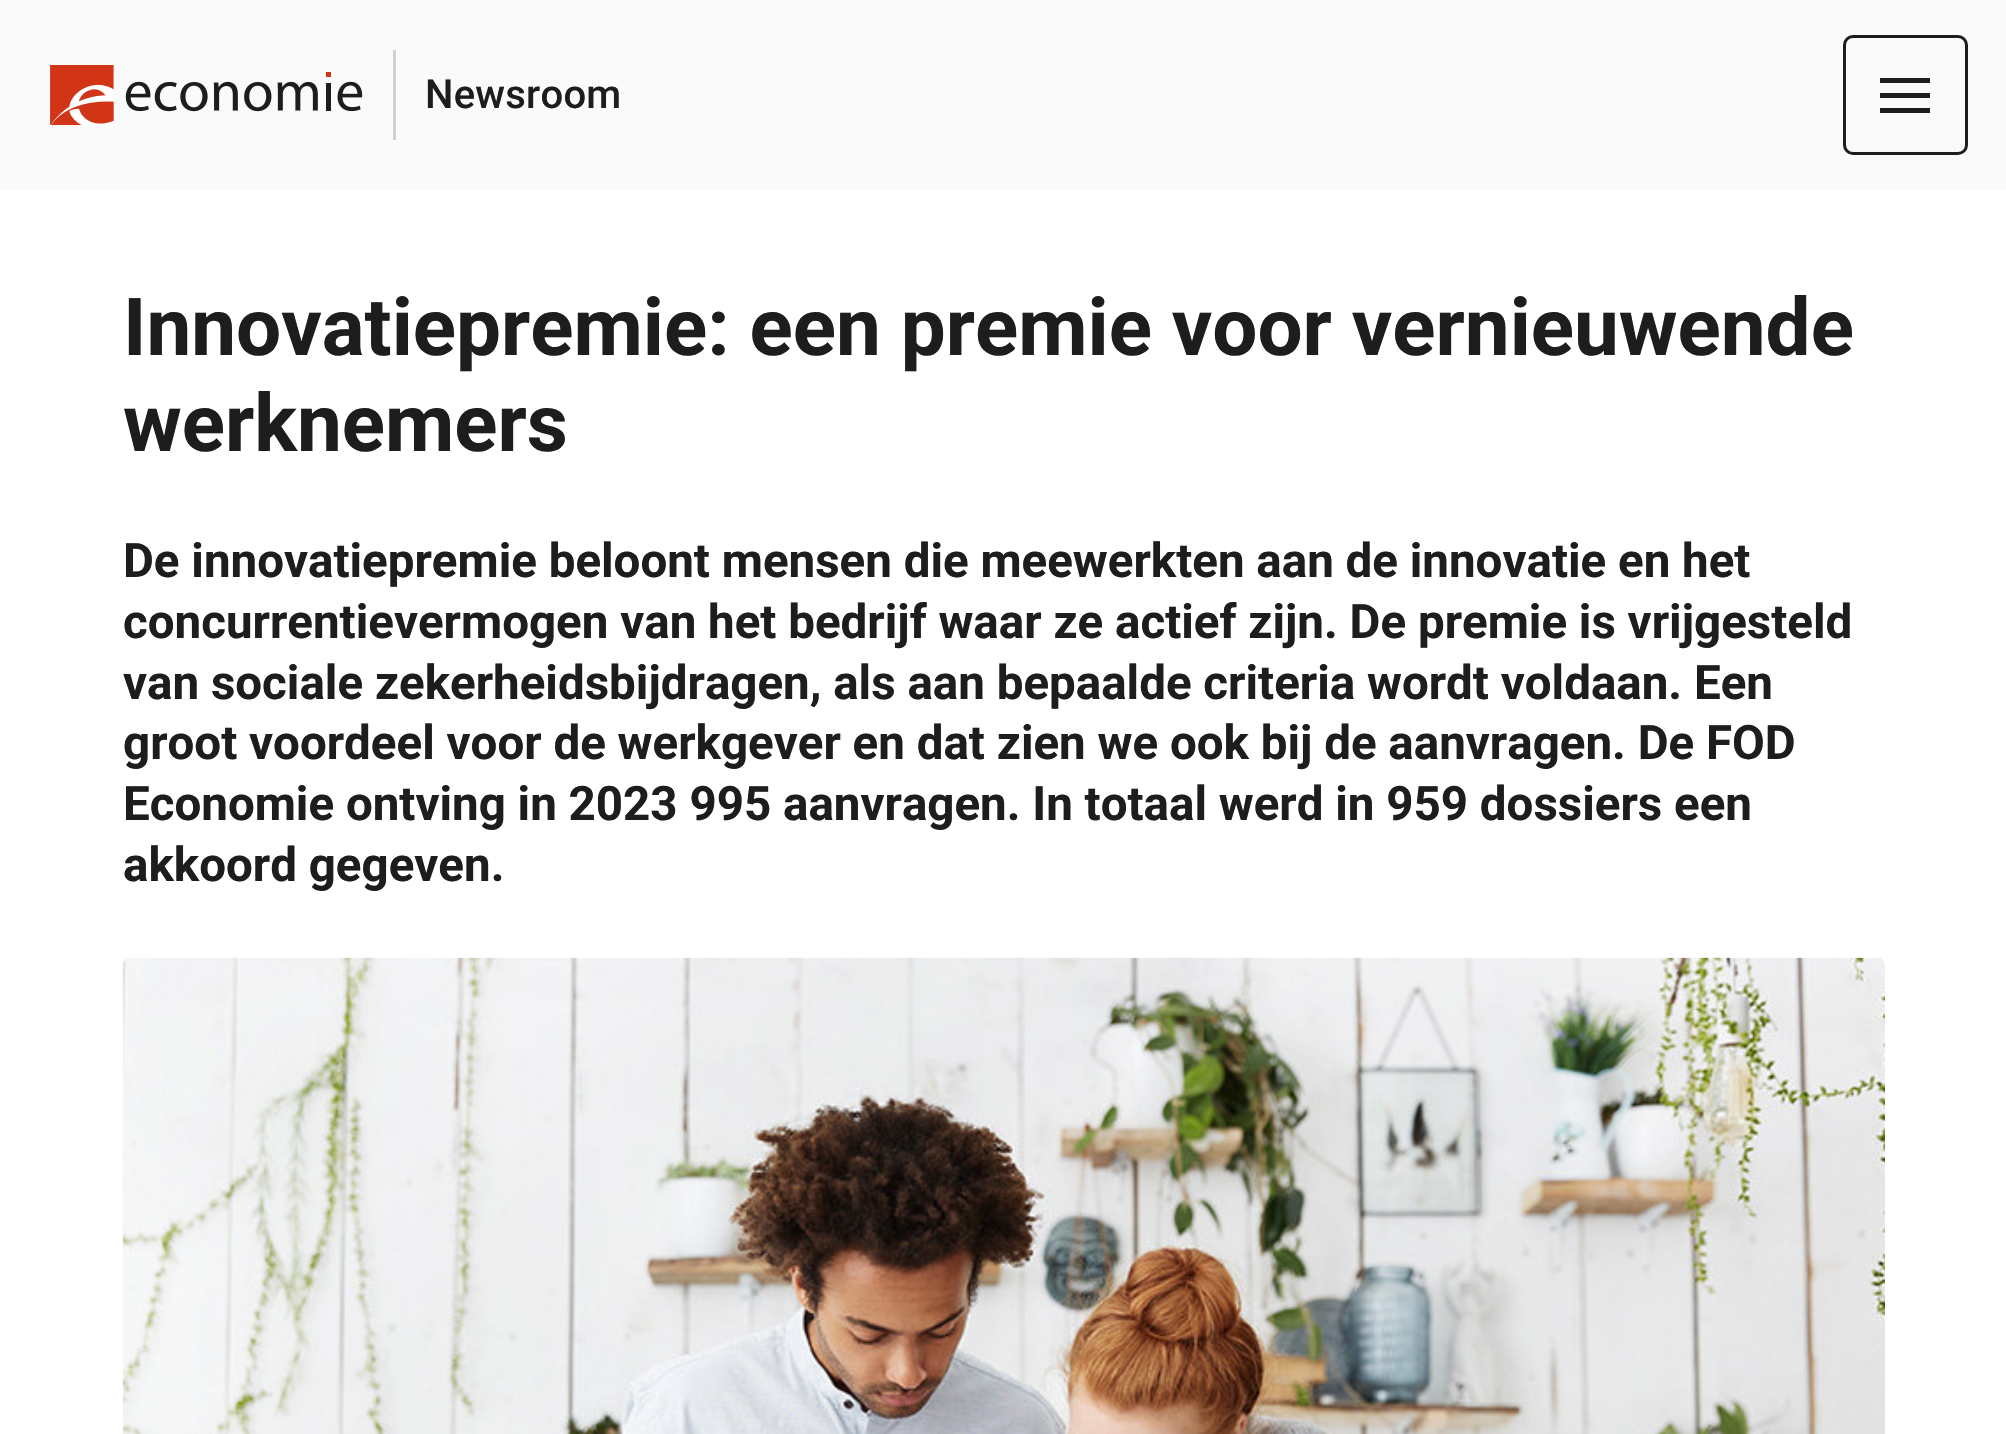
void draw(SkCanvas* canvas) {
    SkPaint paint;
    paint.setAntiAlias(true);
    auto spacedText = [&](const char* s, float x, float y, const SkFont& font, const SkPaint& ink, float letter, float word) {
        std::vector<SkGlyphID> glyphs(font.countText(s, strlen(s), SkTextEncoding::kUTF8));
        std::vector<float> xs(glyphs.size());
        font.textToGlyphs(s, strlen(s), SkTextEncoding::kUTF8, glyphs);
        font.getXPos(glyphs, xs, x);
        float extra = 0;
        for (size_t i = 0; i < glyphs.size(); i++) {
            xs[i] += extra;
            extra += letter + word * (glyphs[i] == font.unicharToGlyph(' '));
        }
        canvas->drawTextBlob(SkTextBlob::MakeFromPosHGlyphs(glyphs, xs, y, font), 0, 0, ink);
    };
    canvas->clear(0xFFFFFFFF);
    paint.setColor(0xFFFAFAFA);
    canvas->drawRect(SkRect::MakeXYWH(0, 0, 2006, 190), paint);
    canvas->drawImageRect(SkImages::DeferredFromEncodedData(SkData::MakeFromFileName("img1.png")), SkRect::MakeXYWH(50, 65, 313, 60), SkSamplingOptions());
    paint.setColor(0xFFCFD1D3);
    canvas->drawRect(SkRect::MakeXYWH(393, 50, 3, 90), paint);
    SkFont font1(fontMgr->matchFamilyStyle("Roboto", SkFontStyle(500, SkFontStyle::kNormal_Width, SkFontStyle::kUpright_Slant)), 40);
    font1.setSubpixel(true);
    paint.setColor(0xFF1D1D1D);
    spacedText("Newsroom", 425, 108, font1, paint, 0.25f, 0);
    paint.setStyle(SkPaint::kStroke_Style);
    paint.setStrokeWidth(3);
    canvas->drawRoundRect(SkRect::MakeXYWH(1844.5f, 36.5f, 122, 117), 8.5f, 8.5f, paint);
    paint.setStyle(SkPaint::kFill_Style);
    canvas->drawRect(SkRect::MakeXYWH(1880, 93, 50, 5), paint);
    canvas->drawRect(SkRect::MakeXYWH(1880, 78, 50, 5), paint);
    canvas->drawRect(SkRect::MakeXYWH(1880, 108, 50, 5), paint);
    SkFont font2(fontMgr->matchFamilyStyle("Roboto", SkFontStyle::Bold()), 80);
    font2.setSubpixel(true);
    canvas->drawString("Innovatiepremie: een premie voor vernieuwende", 123, 355, font2, paint);
    canvas->drawString("werknemers", 123, 451, font2, paint);
    SkFont font3(fontMgr->matchFamilyStyle("Roboto", SkFontStyle::Bold()), 47.5f);
    font3.setSubpixel(true);
    canvas->drawString("De innovatiepremie beloont mensen die meewerkten aan de innovatie en het", 123, 577, font3, paint);
    canvas->drawString("concurrentievermogen van het bedrijf waar ze actief zijn. De premie is vrijgesteld", 123, 638, font3, paint);
    canvas->drawString("van sociale zekerheidsbijdragen, als aan bepaalde criteria wordt voldaan. Een", 123, 699, font3, paint);
    canvas->drawString("groot voordeel voor de werkgever en dat zien we ook bij de aanvragen. De FOD", 123, 759, font3, paint);
    canvas->drawString("Economie ontving in 2023 995 aanvragen. In totaal werd in 959 dossiers een", 123, 820, font3, paint);
    canvas->drawString("akkoord gegeven.", 123, 881, font3, paint);
    canvas->drawImageRect(SkImages::DeferredFromEncodedData(SkData::MakeFromFileName("img2.png")), SkRect::MakeXYWH(122, 957, 1763, 477), SkSamplingOptions());
}
